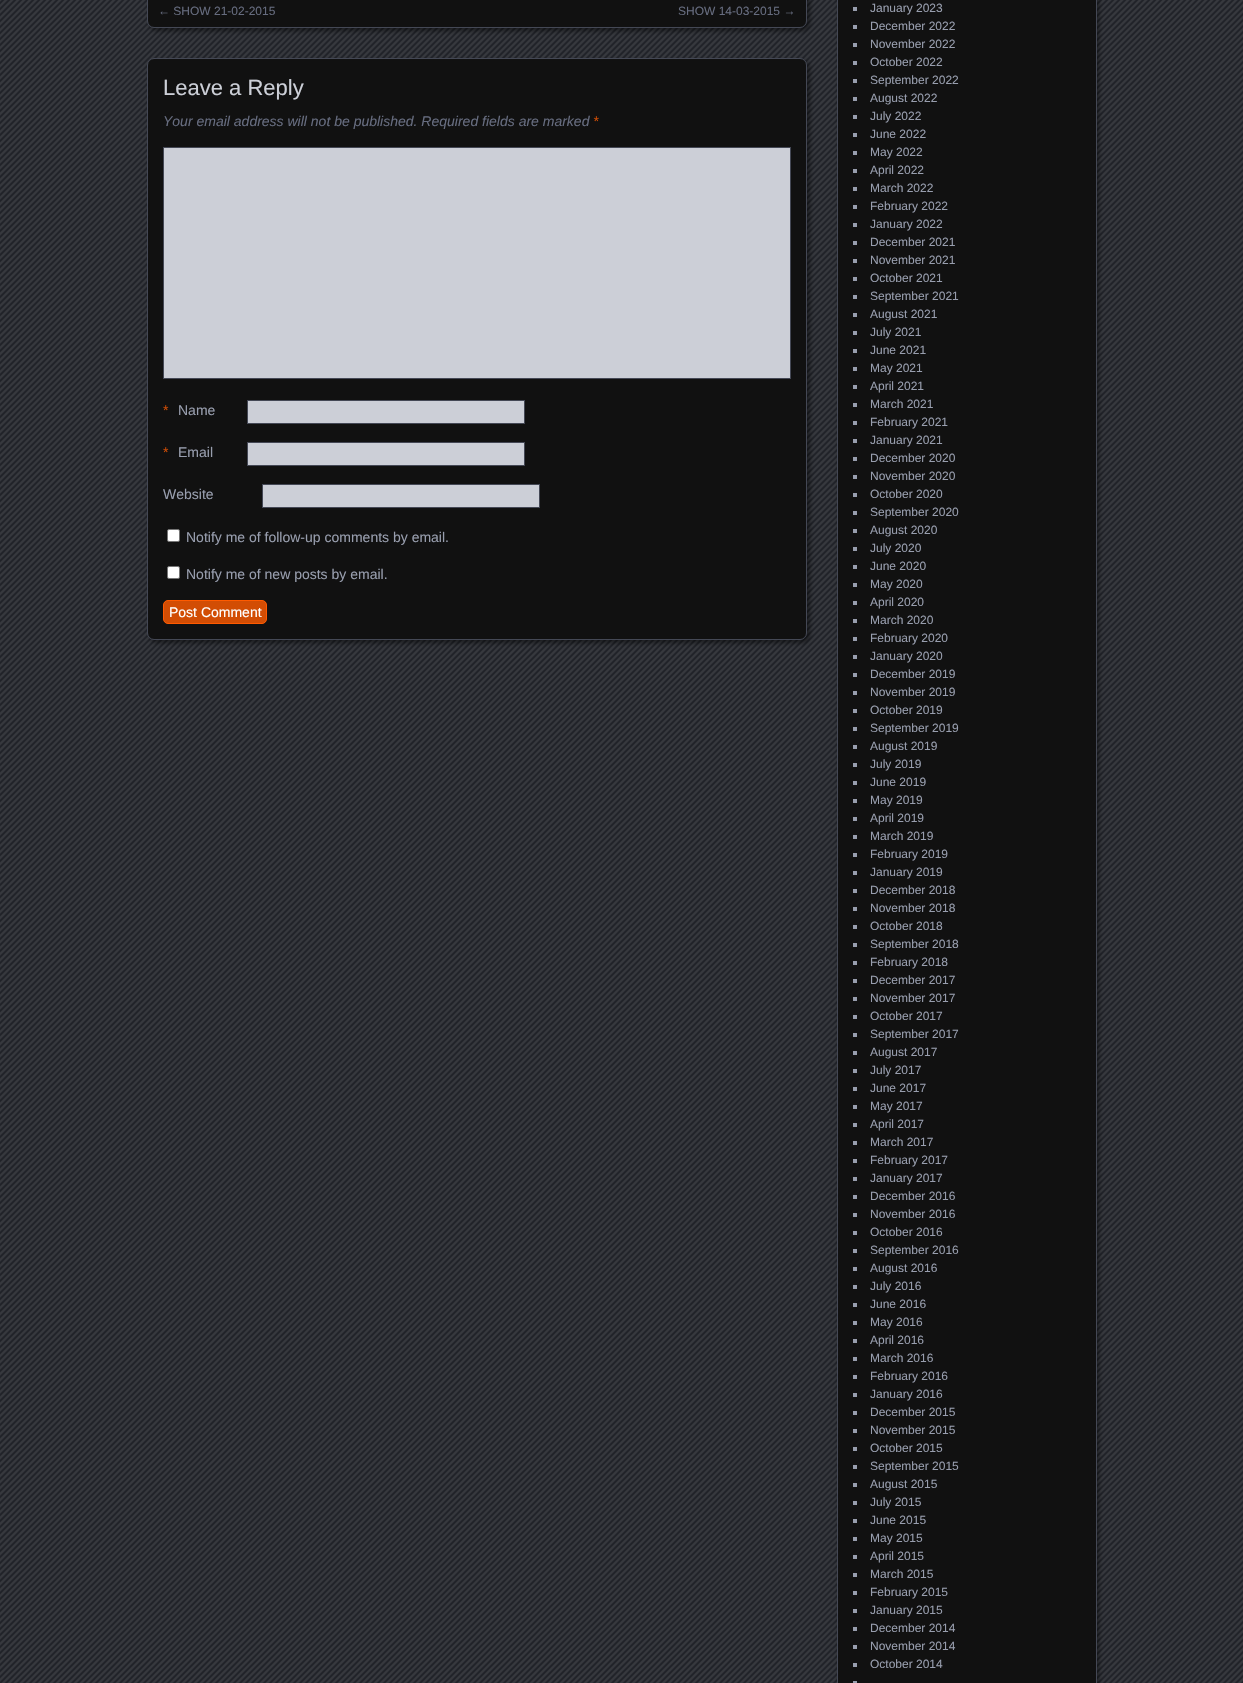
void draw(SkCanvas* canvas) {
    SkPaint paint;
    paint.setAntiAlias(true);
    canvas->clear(0xFF202228);
    canvas->drawImageRect(SkImages::DeferredFromEncodedData(SkData::MakeFromFileName("img1.png")), SkRect::MakeXYWH(0, 0, 1243, 1683), SkSamplingOptions());
    paint.setColor(0x73000000);
    paint.setMaskFilter(SkMaskFilter::MakeBlur(kNormal_SkBlurStyle, 2));
    canvas->drawRoundRect(SkRect::MakeXYWH(150, -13, 660, 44), 7, 7, paint);
    paint.setMaskFilter(nullptr);
    paint.setColor(0xFF111111);
    canvas->drawRoundRect(SkRect::MakeXYWH(147.5f, -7.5f, 659, 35), 6.5f, 6.5f, paint);
    paint.setStyle(SkPaint::kStroke_Style);
    paint.setStrokeWidth(1);
    paint.setColor(0xFF444855);
    canvas->drawRoundRect(SkRect::MakeXYWH(147.5f, -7.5f, 659, 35), 6.5f, 6.5f, paint);
    SkFont font1(fontMgr->matchFamilyStyle("Liberation Sans", SkFontStyle::Normal()), 12);
    font1.setSubpixel(true);
    paint.setStyle(SkPaint::kFill_Style);
    paint.setColor(0xFF666C7F);
    canvas->drawString("← SHOW 21-02-2015", 158, 15, font1, paint);
    canvas->drawString("SHOW 14-03-2015 →", 678, 15, font1, paint);
    paint.setColor(0x73000000);
    paint.setMaskFilter(SkMaskFilter::MakeBlur(kNormal_SkBlurStyle, 2));
    canvas->drawRoundRect(SkRect::MakeXYWH(150, 61, 660, 582), 7, 7, paint);
    paint.setMaskFilter(nullptr);
    paint.setColor(0xFF111111);
    canvas->drawRoundRect(SkRect::MakeXYWH(147.5f, 58.5f, 659, 581), 6.5f, 6.5f, paint);
    paint.setStyle(SkPaint::kStroke_Style);
    paint.setColor(0xFF444855);
    canvas->drawRoundRect(SkRect::MakeXYWH(147.5f, 58.5f, 659, 581), 6.5f, 6.5f, paint);
    SkFont font2(fontMgr->matchFamilyStyle("Liberation Sans", SkFontStyle::Normal()), 22);
    font2.setSubpixel(true);
    paint.setStyle(SkPaint::kFill_Style);
    paint.setColor(0xFFCCCFD7);
    canvas->drawString("Leave a Reply", 163, 95, font2, paint);
    SkFont font3(fontMgr->matchFamilyStyle("Liberation Sans", SkFontStyle::Italic()), 14);
    font3.setSubpixel(true);
    paint.setColor(0xFF666C7F);
    canvas->drawString("Your email address will not be published. Required fields are marked", 163, 126, font3, paint);
    paint.setColor(0xFFD24D04);
    canvas->drawString("*", 593, 126, font3, paint);
    paint.setColor(0xFFCCCFD7);
    canvas->drawRect(SkRect::MakeXYWH(163.5f, 147.5f, 627, 231), paint);
    paint.setStyle(SkPaint::kStroke_Style);
    paint.setColor(0xFF444855);
    canvas->drawRect(SkRect::MakeXYWH(163.5f, 147.5f, 627, 231), paint);
    SkFont font4(fontMgr->matchFamilyStyle("Liberation Sans", SkFontStyle::Normal()), 14);
    font4.setSubpixel(true);
    paint.setStyle(SkPaint::kFill_Style);
    paint.setColor(0xFFD24D04);
    canvas->drawString("*", 163, 415, font4, paint);
    paint.setColor(0xFF989EAE);
    canvas->drawString("Name", 178, 415, font4, paint);
    paint.setColor(0xFFCCCFD7);
    canvas->drawRect(SkRect::MakeXYWH(247.5f, 400.5f, 277, 23), paint);
    paint.setStyle(SkPaint::kStroke_Style);
    paint.setColor(0xFF444855);
    canvas->drawRect(SkRect::MakeXYWH(247.5f, 400.5f, 277, 23), paint);
    paint.setStyle(SkPaint::kFill_Style);
    paint.setColor(0xFFD24D04);
    canvas->drawString("*", 163, 457, font4, paint);
    paint.setColor(0xFF989EAE);
    canvas->drawString("Email", 178, 457, font4, paint);
    paint.setColor(0xFFCCCFD7);
    canvas->drawRect(SkRect::MakeXYWH(247.5f, 442.5f, 277, 23), paint);
    paint.setStyle(SkPaint::kStroke_Style);
    paint.setColor(0xFF444855);
    canvas->drawRect(SkRect::MakeXYWH(247.5f, 442.5f, 277, 23), paint);
    paint.setStyle(SkPaint::kFill_Style);
    paint.setColor(0xFF989EAE);
    canvas->drawString("Website", 163, 499, font4, paint);
    paint.setColor(0xFFCCCFD7);
    canvas->drawRect(SkRect::MakeXYWH(262.5f, 484.5f, 277, 23), paint);
    paint.setStyle(SkPaint::kStroke_Style);
    paint.setColor(0xFF444855);
    canvas->drawRect(SkRect::MakeXYWH(262.5f, 484.5f, 277, 23), paint);
    paint.setStyle(SkPaint::kFill_Style);
    paint.setColor(0xFFFFFFFF);
    canvas->drawRoundRect(SkRect::MakeXYWH(167.5f, 529.5f, 12, 12), 1.5f, 1.5f, paint);
    paint.setStyle(SkPaint::kStroke_Style);
    paint.setColor(0xFF767676);
    canvas->drawRoundRect(SkRect::MakeXYWH(167.5f, 529.5f, 12, 12), 1.5f, 1.5f, paint);
    paint.setStyle(SkPaint::kFill_Style);
    paint.setColor(0xFF989EAE);
    canvas->drawString("Notify me of follow-up comments by email.", 186, 542, font4, paint);
    paint.setColor(0xFFFFFFFF);
    canvas->drawRoundRect(SkRect::MakeXYWH(167.5f, 566.5f, 12, 12), 1.5f, 1.5f, paint);
    paint.setStyle(SkPaint::kStroke_Style);
    paint.setColor(0xFF767676);
    canvas->drawRoundRect(SkRect::MakeXYWH(167.5f, 566.5f, 12, 12), 1.5f, 1.5f, paint);
    paint.setStyle(SkPaint::kFill_Style);
    paint.setColor(0xFF989EAE);
    canvas->drawString("Notify me of new posts by email.", 186, 579, font4, paint);
    paint.setColor(0xFFD24D04);
    canvas->drawRoundRect(SkRect::MakeXYWH(163.5f, 600.5f, 103, 23), 4.5f, 4.5f, paint);
    paint.setStyle(SkPaint::kStroke_Style);
    paint.setColor(0xFFFF5A00);
    canvas->drawRoundRect(SkRect::MakeXYWH(163.5f, 600.5f, 103, 23), 4.5f, 4.5f, paint);
    paint.setStyle(SkPaint::kFill_Style);
    paint.setColor(0xFFFFFFFF);
    canvas->drawString("Post Comment", 169, 617, font4, paint);
    paint.setColor(0x73000000);
    paint.setMaskFilter(SkMaskFilter::MakeBlur(kNormal_SkBlurStyle, 2));
    canvas->drawRoundRect(SkRect::MakeXYWH(839, -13, 260, 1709), 7, 7, paint);
    paint.setMaskFilter(nullptr);
    paint.setColor(0xFF111111);
    canvas->drawRect(SkRect::MakeXYWH(837.5f, -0.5f, 259, 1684), paint);
    paint.setStyle(SkPaint::kStroke_Style);
    paint.setColor(0xFF444855);
    canvas->drawRect(SkRect::MakeXYWH(837.5f, -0.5f, 259, 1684), paint);
    paint.setStyle(SkPaint::kFill_Style);
    paint.setColor(0xFF989EAE);
    canvas->drawRect(SkRect::MakeXYWH(853, 7, 4, 4), paint);
    canvas->drawString("January 2023", 870, 12, font1, paint);
    canvas->drawRect(SkRect::MakeXYWH(853, 25, 4, 4), paint);
    canvas->drawString("December 2022", 870, 30, font1, paint);
    canvas->drawRect(SkRect::MakeXYWH(853, 43, 4, 4), paint);
    canvas->drawString("November 2022", 870, 48, font1, paint);
    canvas->drawRect(SkRect::MakeXYWH(853, 61, 4, 4), paint);
    canvas->drawString("October 2022", 870, 66, font1, paint);
    canvas->drawRect(SkRect::MakeXYWH(853, 79, 4, 4), paint);
    canvas->drawString("September 2022", 870, 84, font1, paint);
    canvas->drawRect(SkRect::MakeXYWH(853, 97, 4, 4), paint);
    canvas->drawString("August 2022", 870, 102, font1, paint);
    canvas->drawRect(SkRect::MakeXYWH(853, 115, 4, 4), paint);
    canvas->drawString("July 2022", 870, 120, font1, paint);
    canvas->drawRect(SkRect::MakeXYWH(853, 133, 4, 4), paint);
    canvas->drawString("June 2022", 870, 138, font1, paint);
    canvas->drawRect(SkRect::MakeXYWH(853, 151, 4, 4), paint);
    canvas->drawString("May 2022", 870, 156, font1, paint);
    canvas->drawRect(SkRect::MakeXYWH(853, 169, 4, 4), paint);
    canvas->drawString("April 2022", 870, 174, font1, paint);
    canvas->drawRect(SkRect::MakeXYWH(853, 187, 4, 4), paint);
    canvas->drawString("March 2022", 870, 192, font1, paint);
    canvas->drawRect(SkRect::MakeXYWH(853, 205, 4, 4), paint);
    canvas->drawString("February 2022", 870, 210, font1, paint);
    canvas->drawRect(SkRect::MakeXYWH(853, 223, 4, 4), paint);
    canvas->drawString("January 2022", 870, 228, font1, paint);
    canvas->drawRect(SkRect::MakeXYWH(853, 241, 4, 4), paint);
    canvas->drawString("December 2021", 870, 246, font1, paint);
    canvas->drawRect(SkRect::MakeXYWH(853, 259, 4, 4), paint);
    canvas->drawString("November 2021", 870, 264, font1, paint);
    canvas->drawRect(SkRect::MakeXYWH(853, 277, 4, 4), paint);
    canvas->drawString("October 2021", 870, 282, font1, paint);
    canvas->drawRect(SkRect::MakeXYWH(853, 295, 4, 4), paint);
    canvas->drawString("September 2021", 870, 300, font1, paint);
    canvas->drawRect(SkRect::MakeXYWH(853, 313, 4, 4), paint);
    canvas->drawString("August 2021", 870, 318, font1, paint);
    canvas->drawRect(SkRect::MakeXYWH(853, 331, 4, 4), paint);
    canvas->drawString("July 2021", 870, 336, font1, paint);
    canvas->drawRect(SkRect::MakeXYWH(853, 349, 4, 4), paint);
    canvas->drawString("June 2021", 870, 354, font1, paint);
    canvas->drawRect(SkRect::MakeXYWH(853, 367, 4, 4), paint);
    canvas->drawString("May 2021", 870, 372, font1, paint);
    canvas->drawRect(SkRect::MakeXYWH(853, 385, 4, 4), paint);
    canvas->drawString("April 2021", 870, 390, font1, paint);
    canvas->drawRect(SkRect::MakeXYWH(853, 403, 4, 4), paint);
    canvas->drawString("March 2021", 870, 408, font1, paint);
    canvas->drawRect(SkRect::MakeXYWH(853, 421, 4, 4), paint);
    canvas->drawString("February 2021", 870, 426, font1, paint);
    canvas->drawRect(SkRect::MakeXYWH(853, 439, 4, 4), paint);
    canvas->drawString("January 2021", 870, 444, font1, paint);
    canvas->drawRect(SkRect::MakeXYWH(853, 457, 4, 4), paint);
    canvas->drawString("December 2020", 870, 462, font1, paint);
    canvas->drawRect(SkRect::MakeXYWH(853, 475, 4, 4), paint);
    canvas->drawString("November 2020", 870, 480, font1, paint);
    canvas->drawRect(SkRect::MakeXYWH(853, 493, 4, 4), paint);
    canvas->drawString("October 2020", 870, 498, font1, paint);
    canvas->drawRect(SkRect::MakeXYWH(853, 511, 4, 4), paint);
    canvas->drawString("September 2020", 870, 516, font1, paint);
    canvas->drawRect(SkRect::MakeXYWH(853, 529, 4, 4), paint);
    canvas->drawString("August 2020", 870, 534, font1, paint);
    canvas->drawRect(SkRect::MakeXYWH(853, 547, 4, 4), paint);
    canvas->drawString("July 2020", 870, 552, font1, paint);
    canvas->drawRect(SkRect::MakeXYWH(853, 565, 4, 4), paint);
    canvas->drawString("June 2020", 870, 570, font1, paint);
    canvas->drawRect(SkRect::MakeXYWH(853, 583, 4, 4), paint);
    canvas->drawString("May 2020", 870, 588, font1, paint);
    canvas->drawRect(SkRect::MakeXYWH(853, 601, 4, 4), paint);
    canvas->drawString("April 2020", 870, 606, font1, paint);
    canvas->drawRect(SkRect::MakeXYWH(853, 619, 4, 4), paint);
    canvas->drawString("March 2020", 870, 624, font1, paint);
    canvas->drawRect(SkRect::MakeXYWH(853, 637, 4, 4), paint);
    canvas->drawString("February 2020", 870, 642, font1, paint);
    canvas->drawRect(SkRect::MakeXYWH(853, 655, 4, 4), paint);
    canvas->drawString("January 2020", 870, 660, font1, paint);
    canvas->drawRect(SkRect::MakeXYWH(853, 673, 4, 4), paint);
    canvas->drawString("December 2019", 870, 678, font1, paint);
    canvas->drawRect(SkRect::MakeXYWH(853, 691, 4, 4), paint);
    canvas->drawString("November 2019", 870, 696, font1, paint);
    canvas->drawRect(SkRect::MakeXYWH(853, 709, 4, 4), paint);
    canvas->drawString("October 2019", 870, 714, font1, paint);
    canvas->drawRect(SkRect::MakeXYWH(853, 727, 4, 4), paint);
    canvas->drawString("September 2019", 870, 732, font1, paint);
    canvas->drawRect(SkRect::MakeXYWH(853, 745, 4, 4), paint);
    canvas->drawString("August 2019", 870, 750, font1, paint);
    canvas->drawRect(SkRect::MakeXYWH(853, 763, 4, 4), paint);
    canvas->drawString("July 2019", 870, 768, font1, paint);
    canvas->drawRect(SkRect::MakeXYWH(853, 781, 4, 4), paint);
    canvas->drawString("June 2019", 870, 786, font1, paint);
    canvas->drawRect(SkRect::MakeXYWH(853, 799, 4, 4), paint);
    canvas->drawString("May 2019", 870, 804, font1, paint);
    canvas->drawRect(SkRect::MakeXYWH(853, 817, 4, 4), paint);
    canvas->drawString("April 2019", 870, 822, font1, paint);
    canvas->drawRect(SkRect::MakeXYWH(853, 835, 4, 4), paint);
    canvas->drawString("March 2019", 870, 840, font1, paint);
    canvas->drawRect(SkRect::MakeXYWH(853, 853, 4, 4), paint);
    canvas->drawString("February 2019", 870, 858, font1, paint);
    canvas->drawRect(SkRect::MakeXYWH(853, 871, 4, 4), paint);
    canvas->drawString("January 2019", 870, 876, font1, paint);
    canvas->drawRect(SkRect::MakeXYWH(853, 889, 4, 4), paint);
    canvas->drawString("December 2018", 870, 894, font1, paint);
    canvas->drawRect(SkRect::MakeXYWH(853, 907, 4, 4), paint);
    canvas->drawString("November 2018", 870, 912, font1, paint);
    canvas->drawRect(SkRect::MakeXYWH(853, 925, 4, 4), paint);
    canvas->drawString("October 2018", 870, 930, font1, paint);
    canvas->drawRect(SkRect::MakeXYWH(853, 943, 4, 4), paint);
    canvas->drawString("September 2018", 870, 948, font1, paint);
    canvas->drawRect(SkRect::MakeXYWH(853, 961, 4, 4), paint);
    canvas->drawString("February 2018", 870, 966, font1, paint);
    canvas->drawRect(SkRect::MakeXYWH(853, 979, 4, 4), paint);
    canvas->drawString("December 2017", 870, 984, font1, paint);
    canvas->drawRect(SkRect::MakeXYWH(853, 997, 4, 4), paint);
    canvas->drawString("November 2017", 870, 1002, font1, paint);
    canvas->drawRect(SkRect::MakeXYWH(853, 1015, 4, 4), paint);
    canvas->drawString("October 2017", 870, 1020, font1, paint);
    canvas->drawRect(SkRect::MakeXYWH(853, 1033, 4, 4), paint);
    canvas->drawString("September 2017", 870, 1038, font1, paint);
    canvas->drawRect(SkRect::MakeXYWH(853, 1051, 4, 4), paint);
    canvas->drawString("August 2017", 870, 1056, font1, paint);
    canvas->drawRect(SkRect::MakeXYWH(853, 1069, 4, 4), paint);
    canvas->drawString("July 2017", 870, 1074, font1, paint);
    canvas->drawRect(SkRect::MakeXYWH(853, 1087, 4, 4), paint);
    canvas->drawString("June 2017", 870, 1092, font1, paint);
    canvas->drawRect(SkRect::MakeXYWH(853, 1105, 4, 4), paint);
    canvas->drawString("May 2017", 870, 1110, font1, paint);
    canvas->drawRect(SkRect::MakeXYWH(853, 1123, 4, 4), paint);
    canvas->drawString("April 2017", 870, 1128, font1, paint);
    canvas->drawRect(SkRect::MakeXYWH(853, 1141, 4, 4), paint);
    canvas->drawString("March 2017", 870, 1146, font1, paint);
    canvas->drawRect(SkRect::MakeXYWH(853, 1159, 4, 4), paint);
    canvas->drawString("February 2017", 870, 1164, font1, paint);
    canvas->drawRect(SkRect::MakeXYWH(853, 1177, 4, 4), paint);
    canvas->drawString("January 2017", 870, 1182, font1, paint);
    canvas->drawRect(SkRect::MakeXYWH(853, 1195, 4, 4), paint);
    canvas->drawString("December 2016", 870, 1200, font1, paint);
    canvas->drawRect(SkRect::MakeXYWH(853, 1213, 4, 4), paint);
    canvas->drawString("November 2016", 870, 1218, font1, paint);
    canvas->drawRect(SkRect::MakeXYWH(853, 1231, 4, 4), paint);
    canvas->drawString("October 2016", 870, 1236, font1, paint);
    canvas->drawRect(SkRect::MakeXYWH(853, 1249, 4, 4), paint);
    canvas->drawString("September 2016", 870, 1254, font1, paint);
    canvas->drawRect(SkRect::MakeXYWH(853, 1267, 4, 4), paint);
    canvas->drawString("August 2016", 870, 1272, font1, paint);
    canvas->drawRect(SkRect::MakeXYWH(853, 1285, 4, 4), paint);
    canvas->drawString("July 2016", 870, 1290, font1, paint);
    canvas->drawRect(SkRect::MakeXYWH(853, 1303, 4, 4), paint);
    canvas->drawString("June 2016", 870, 1308, font1, paint);
    canvas->drawRect(SkRect::MakeXYWH(853, 1321, 4, 4), paint);
    canvas->drawString("May 2016", 870, 1326, font1, paint);
    canvas->drawRect(SkRect::MakeXYWH(853, 1339, 4, 4), paint);
    canvas->drawString("April 2016", 870, 1344, font1, paint);
    canvas->drawRect(SkRect::MakeXYWH(853, 1357, 4, 4), paint);
    canvas->drawString("March 2016", 870, 1362, font1, paint);
    canvas->drawRect(SkRect::MakeXYWH(853, 1375, 4, 4), paint);
    canvas->drawString("February 2016", 870, 1380, font1, paint);
    canvas->drawRect(SkRect::MakeXYWH(853, 1393, 4, 4), paint);
    canvas->drawString("January 2016", 870, 1398, font1, paint);
    canvas->drawRect(SkRect::MakeXYWH(853, 1411, 4, 4), paint);
    canvas->drawString("December 2015", 870, 1416, font1, paint);
    canvas->drawRect(SkRect::MakeXYWH(853, 1429, 4, 4), paint);
    canvas->drawString("November 2015", 870, 1434, font1, paint);
    canvas->drawRect(SkRect::MakeXYWH(853, 1447, 4, 4), paint);
    canvas->drawString("October 2015", 870, 1452, font1, paint);
    canvas->drawRect(SkRect::MakeXYWH(853, 1465, 4, 4), paint);
    canvas->drawString("September 2015", 870, 1470, font1, paint);
    canvas->drawRect(SkRect::MakeXYWH(853, 1483, 4, 4), paint);
    canvas->drawString("August 2015", 870, 1488, font1, paint);
    canvas->drawRect(SkRect::MakeXYWH(853, 1501, 4, 4), paint);
    canvas->drawString("July 2015", 870, 1506, font1, paint);
    canvas->drawRect(SkRect::MakeXYWH(853, 1519, 4, 4), paint);
    canvas->drawString("June 2015", 870, 1524, font1, paint);
    canvas->drawRect(SkRect::MakeXYWH(853, 1537, 4, 4), paint);
    canvas->drawString("May 2015", 870, 1542, font1, paint);
    canvas->drawRect(SkRect::MakeXYWH(853, 1555, 4, 4), paint);
    canvas->drawString("April 2015", 870, 1560, font1, paint);
    canvas->drawRect(SkRect::MakeXYWH(853, 1573, 4, 4), paint);
    canvas->drawString("March 2015", 870, 1578, font1, paint);
    canvas->drawRect(SkRect::MakeXYWH(853, 1591, 4, 4), paint);
    canvas->drawString("February 2015", 870, 1596, font1, paint);
    canvas->drawRect(SkRect::MakeXYWH(853, 1609, 4, 4), paint);
    canvas->drawString("January 2015", 870, 1614, font1, paint);
    canvas->drawRect(SkRect::MakeXYWH(853, 1627, 4, 4), paint);
    canvas->drawString("December 2014", 870, 1632, font1, paint);
    canvas->drawRect(SkRect::MakeXYWH(853, 1645, 4, 4), paint);
    canvas->drawString("November 2014", 870, 1650, font1, paint);
    canvas->drawRect(SkRect::MakeXYWH(853, 1663, 4, 4), paint);
    canvas->drawString("October 2014", 870, 1668, font1, paint);
    canvas->drawRect(SkRect::MakeXYWH(853, 1681, 4, 2), paint);
}
